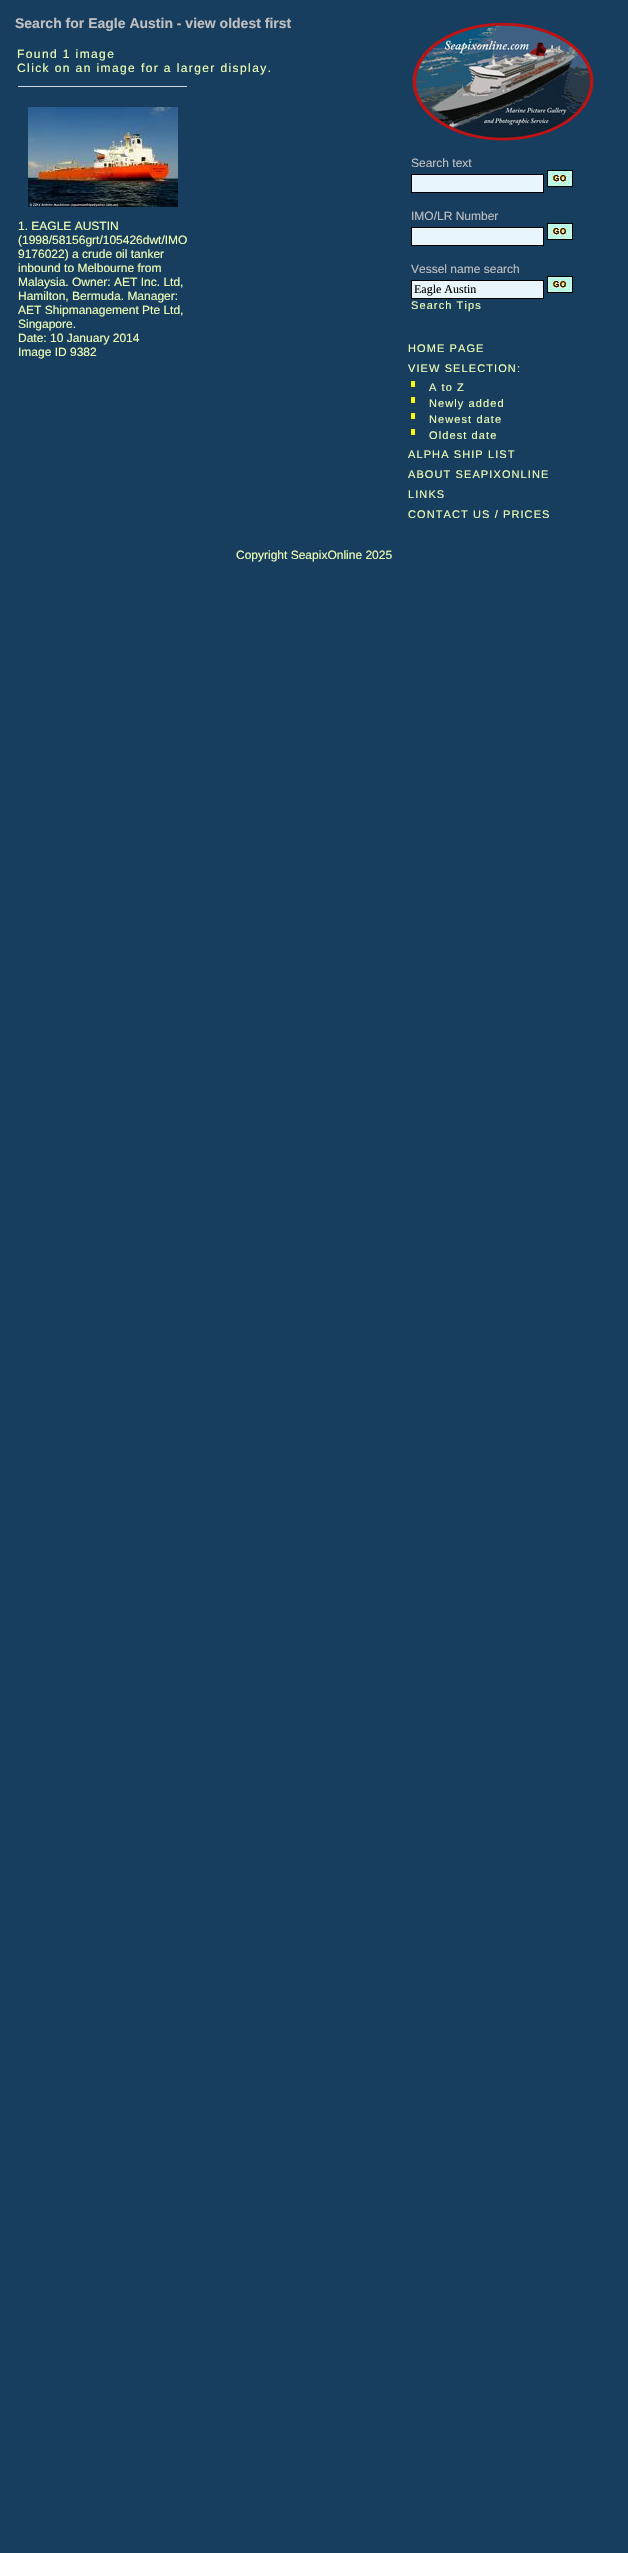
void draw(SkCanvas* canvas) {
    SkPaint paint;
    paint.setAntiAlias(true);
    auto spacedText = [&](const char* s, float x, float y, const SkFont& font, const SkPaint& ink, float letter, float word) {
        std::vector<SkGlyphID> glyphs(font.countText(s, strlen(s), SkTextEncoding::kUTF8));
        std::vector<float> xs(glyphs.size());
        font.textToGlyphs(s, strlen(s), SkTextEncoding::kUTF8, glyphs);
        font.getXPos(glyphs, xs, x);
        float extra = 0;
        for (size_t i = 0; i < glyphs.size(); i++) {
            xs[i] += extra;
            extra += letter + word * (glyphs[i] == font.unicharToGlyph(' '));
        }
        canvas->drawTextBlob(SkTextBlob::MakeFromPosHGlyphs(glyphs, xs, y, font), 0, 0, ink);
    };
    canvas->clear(0xFF173D5F);
    SkFont font1(fontMgr->matchFamilyStyle("Liberation Sans", SkFontStyle::Bold()), 14);
    font1.setSubpixel(true);
    paint.setColor(0xFFC0C0C0);
    canvas->drawString("Search for Eagle Austin - view oldest first", 15, 28, font1, paint);
    SkFont font2(fontMgr->matchFamilyStyle("Liberation Sans", SkFontStyle::Normal()), 12);
    font2.setSubpixel(true);
    paint.setColor(0xFFEFFFB6);
    spacedText("Found 1 image", 17, 58, font2, paint, 1.4f, 0);
    spacedText("Click on an image for a larger display.", 17, 72, font2, paint, 1.4f, 0);
    paint.setColor(0xFFD1D7DC);
    canvas->drawRect(SkRect::MakeXYWH(18, 86, 169, 1), paint);
    canvas->drawImageRect(SkImages::DeferredFromEncodedData(SkData::MakeFromFileName("img1.png")), SkRect::MakeXYWH(28, 107, 150, 100), SkSamplingOptions());
    paint.setColor(0xFFEFFFB6);
    canvas->drawString("1. EAGLE AUSTIN", 18, 230, font2, paint);
    canvas->drawString("(1998/58156grt/105426dwt/IMO", 18, 244, font2, paint);
    canvas->drawString("9176022) a crude oil tanker", 18, 258, font2, paint);
    canvas->drawString("inbound to Melbourne from", 18, 272, font2, paint);
    canvas->drawString("Malaysia. Owner: AET Inc. Ltd,", 18, 286, font2, paint);
    canvas->drawString("Hamilton, Bermuda. Manager:", 18, 300, font2, paint);
    canvas->drawString("AET Shipmanagement Pte Ltd,", 18, 314, font2, paint);
    canvas->drawString("Singapore.", 18, 328, font2, paint);
    canvas->drawString("Date: 10 January 2014", 18, 342, font2, paint);
    canvas->drawString("Image ID 9382", 18, 356, font2, paint);
    canvas->drawImageRect(SkImages::DeferredFromEncodedData(SkData::MakeFromFileName("img2.png")), SkRect::MakeXYWH(411, 15, 184, 128), SkSamplingOptions());
    paint.setColor(0xFFC0C0C0);
    canvas->drawString("Search text", 411, 167, font2, paint);
    paint.setColor(0xFFE8F5FB);
    canvas->drawRect(SkRect::MakeXYWH(411.5f, 174.5f, 132, 18), paint);
    paint.setStyle(SkPaint::kStroke_Style);
    paint.setStrokeWidth(1);
    paint.setColor(0xFF000000);
    canvas->drawRect(SkRect::MakeXYWH(411.5f, 174.5f, 132, 18), paint);
    canvas->drawRect(SkRect::MakeXYWH(547.5f, 170.5f, 25, 16), paint);
    canvas->drawImageRect(SkImages::DeferredFromEncodedData(SkData::MakeFromFileName("img3.png")), SkRect::MakeXYWH(548, 171, 24, 15), SkSamplingOptions());
    paint.setStyle(SkPaint::kFill_Style);
    paint.setColor(0xFFC0C0C0);
    canvas->drawString("IMO/LR Number", 411, 220, font2, paint);
    paint.setColor(0xFFE8F5FB);
    canvas->drawRect(SkRect::MakeXYWH(411.5f, 227.5f, 132, 18), paint);
    paint.setStyle(SkPaint::kStroke_Style);
    paint.setColor(0xFF000000);
    canvas->drawRect(SkRect::MakeXYWH(411.5f, 227.5f, 132, 18), paint);
    canvas->drawRect(SkRect::MakeXYWH(547.5f, 223.5f, 25, 16), paint);
    canvas->drawImageRect(SkImages::DeferredFromEncodedData(SkData::MakeFromFileName("img3.png")), SkRect::MakeXYWH(548, 224, 24, 15), SkSamplingOptions());
    paint.setStyle(SkPaint::kFill_Style);
    paint.setColor(0xFFC0C0C0);
    canvas->drawString("Vessel name search", 411, 273, font2, paint);
    paint.setColor(0xFFE8F5FB);
    canvas->drawRect(SkRect::MakeXYWH(411.5f, 280.5f, 132, 18), paint);
    paint.setStyle(SkPaint::kStroke_Style);
    paint.setColor(0xFF000000);
    canvas->drawRect(SkRect::MakeXYWH(411.5f, 280.5f, 132, 18), paint);
    SkFont font3(fontMgr->matchFamilyStyle("Liberation Serif", SkFontStyle::Normal()), 12);
    font3.setSubpixel(true);
    paint.setStyle(SkPaint::kFill_Style);
    canvas->drawString("Eagle Austin", 414, 293, font3, paint);
    paint.setStyle(SkPaint::kStroke_Style);
    canvas->drawRect(SkRect::MakeXYWH(547.5f, 276.5f, 25, 16), paint);
    canvas->drawImageRect(SkImages::DeferredFromEncodedData(SkData::MakeFromFileName("img3.png")), SkRect::MakeXYWH(548, 277, 24, 15), SkSamplingOptions());
    SkFont font4(fontMgr->matchFamilyStyle("Liberation Sans", SkFontStyle::Normal()), 11);
    font4.setSubpixel(true);
    paint.setStyle(SkPaint::kFill_Style);
    paint.setColor(0xFFEFFFB6);
    spacedText("Search Tips", 411, 309, font4, paint, 1.1f, 0);
    spacedText("HOME PAGE", 408, 352, font4, paint, 1.1f, 0);
    spacedText("VIEW SELECTION:", 408, 372, font4, paint, 1.1f, 0);
    paint.setColor(0xFFF9FA06);
    canvas->drawRect(SkRect::MakeXYWH(411, 381, 4, 6), paint);
    paint.setColor(0xFFEFFFB6);
    spacedText("A to Z", 429, 391, font4, paint, 1.1f, 0);
    paint.setColor(0xFFF9FA06);
    canvas->drawRect(SkRect::MakeXYWH(411, 397, 4, 6), paint);
    paint.setColor(0xFFEFFFB6);
    spacedText("Newly added", 429, 407, font4, paint, 1.1f, 0);
    paint.setColor(0xFFF9FA06);
    canvas->drawRect(SkRect::MakeXYWH(411, 413, 4, 6), paint);
    paint.setColor(0xFFEFFFB6);
    spacedText("Newest date", 429, 423, font4, paint, 1.1f, 0);
    paint.setColor(0xFFF9FA06);
    canvas->drawRect(SkRect::MakeXYWH(411, 429, 4, 6), paint);
    paint.setColor(0xFFEFFFB6);
    spacedText("Oldest date", 429, 439, font4, paint, 1.1f, 0);
    spacedText("ALPHA SHIP LIST", 408, 458, font4, paint, 1.1f, 0);
    spacedText("ABOUT SEAPIXONLINE", 408, 478, font4, paint, 1.1f, 0);
    spacedText("LINKS", 408, 498, font4, paint, 1.1f, 0);
    spacedText("CONTACT US / PRICES", 408, 518, font4, paint, 1.1f, 0);
    canvas->drawString("Copyright SeapixOnline 2025", 236, 559, font2, paint);
}
